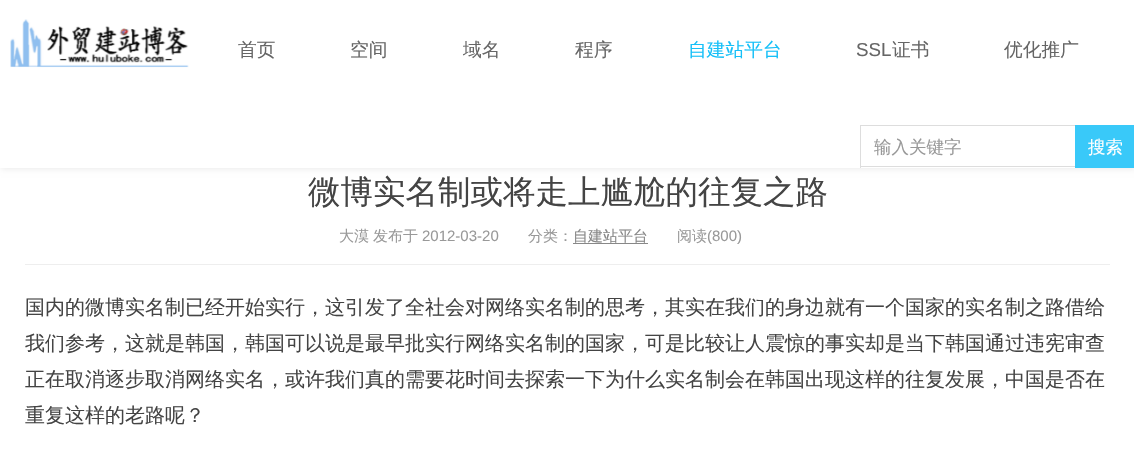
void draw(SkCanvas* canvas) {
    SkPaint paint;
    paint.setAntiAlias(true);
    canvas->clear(0xFFFFFFFF);
    paint.setColor(0x14000000);
    paint.setMaskFilter(SkMaskFilter::MakeBlur(kNormal_SkBlurStyle, 3));
    canvas->drawRect(SkRect::MakeXYWH(1, 1, 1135, 168), paint);
    paint.setMaskFilter(nullptr);
    paint.setColor(0xFFFFFFFF);
    canvas->drawRect(SkRect::MakeXYWH(0, 0, 1134, 168), paint);
    canvas->drawImageRect(SkImages::DeferredFromEncodedData(SkData::MakeFromFileName("img1.png")), SkRect::MakeXYWH(0, 0, 200, 98), SkSamplingOptions());
    SkFont font1(fontMgr->matchFamilyStyle("WenQuanYi Zen Hei", SkFontStyle(500, SkFontStyle::kNormal_Width, SkFontStyle::kUpright_Slant)), 18.75f);
    font1.setSubpixel(true);
    paint.setColor(0xFF666666);
    canvas->drawString("首页", 238, 56, font1, paint);
    canvas->drawString("空间", 350, 56, font1, paint);
    canvas->drawString("域名", 463, 56, font1, paint);
    canvas->drawString("程序", 575, 56, font1, paint);
    paint.setColor(0xFF16C0F8);
    canvas->drawString("自建站平台", 688, 56, font1, paint);
    SkFont font2(fontMgr->matchFamilyStyle("Liberation Sans", SkFontStyle::Normal()), 18.75f);
    font2.setSubpixel(true);
    paint.setColor(0xFF666666);
    canvas->drawString("SSL", 856, 56, font2, paint);
    canvas->drawString("证书", 892, 56, font1, paint);
    canvas->drawString("优化推广", 1004, 56, font1, paint);
    paint.setColor(0xFFDDDDDD);
    canvas->drawRect(SkRect::MakeXYWH(860, 125, 215, 1), paint);
    canvas->drawRect(SkRect::MakeXYWH(860, 166, 215, 1), paint);
    canvas->drawRect(SkRect::MakeXYWH(860, 125, 1, 43), paint);
    SkFont font3(fontMgr->matchFamilyStyle("WenQuanYi Zen Hei", SkFontStyle(500, SkFontStyle::kNormal_Width, SkFontStyle::kUpright_Slant)), 17.5f);
    font3.setSubpixel(true);
    paint.setColor(0xFF999999);
    canvas->drawString("输入关键字", 874, 153, font3, paint);
    paint.setColor(0xFF39C9F9);
    canvas->drawRect(SkRect::MakeXYWH(1075, 125, 59, 43), paint);
    paint.setColor(0xFFFFFFFF);
    canvas->drawString("搜索", 1088, 153, font3, paint);
    paint.setColor(0xFFEEEEEE);
    canvas->drawRect(SkRect::MakeXYWH(25, 264, 1085, 1), paint);
    SkFont font4(fontMgr->matchFamilyStyle("WenQuanYi Zen Hei", SkFontStyle(500, SkFontStyle::kNormal_Width, SkFontStyle::kUpright_Slant)), 32.5f);
    font4.setSubpixel(true);
    paint.setColor(0xFF444444);
    canvas->drawString("微博实名制或将走上尴尬的往复之路", 308, 203, font4, paint);
    SkFont font5(fontMgr->matchFamilyStyle("WenQuanYi Zen Hei", SkFontStyle(500, SkFontStyle::kNormal_Width, SkFontStyle::kUpright_Slant)), 15);
    font5.setSubpixel(true);
    paint.setColor(0xFF999999);
    canvas->drawString("大漠", 339, 241, font5, paint);
    canvas->drawString("发布于", 373, 241, font5, paint);
    SkFont font6(fontMgr->matchFamilyStyle("Liberation Sans", SkFontStyle::Normal()), 15);
    font6.setSubpixel(true);
    canvas->drawString("2012-03-20", 422, 241, font6, paint);
    canvas->drawString("分类：", 528, 241, font5, paint);
    paint.setColor(0xFF888888);
    canvas->drawString("自建站平台", 573, 241, font5, paint);
    canvas->drawRect(SkRect::MakeXYWH(573, 243, 75, 1), paint);
    paint.setColor(0xFF999999);
    canvas->drawString("阅读", 677, 241, font5, paint);
    canvas->drawString("(800)", 707, 241, font6, paint);
    SkFont font7(fontMgr->matchFamilyStyle("WenQuanYi Zen Hei", SkFontStyle(500, SkFontStyle::kNormal_Width, SkFontStyle::kUpright_Slant)), 20);
    font7.setSubpixel(true);
    paint.setColor(0xFF444444);
    canvas->drawString("国内的微博实名制已经开始实行，这引发了全社会对网络实名制的思考，其实在我们的身边就有一个国家的实名制之路借给", 25, 314, font7, paint);
    canvas->drawString("我们参考，这就是韩国，韩国可以说是最早批实行网络实名制的国家，可是比较让人震惊的事实却是当下韩国通过违宪审查", 25, 350, font7, paint);
    canvas->drawString("正在取消逐步取消网络实名，或许我们真的需要花时间去探索一下为什么实名制会在韩国出现这样的往复发展，中国是否在", 25, 386, font7, paint);
    canvas->drawString("重复这样的老路呢？", 25, 422, font7, paint);
}
